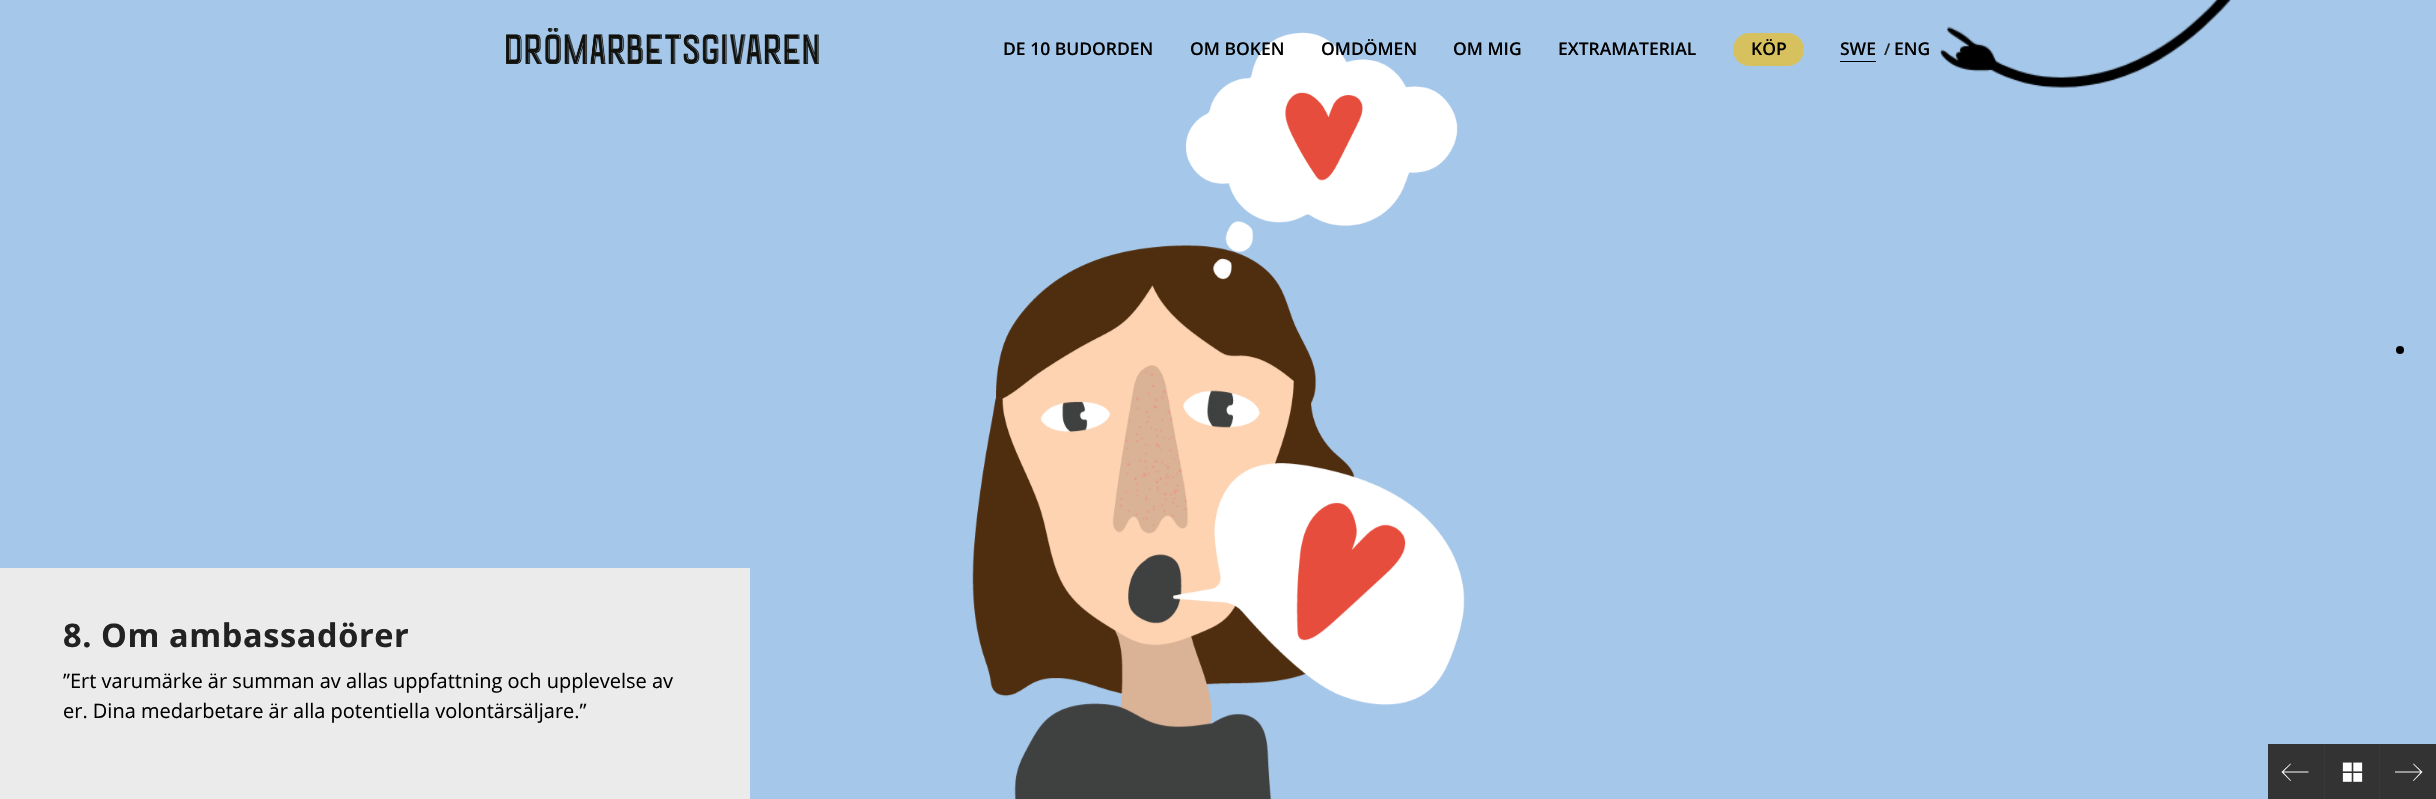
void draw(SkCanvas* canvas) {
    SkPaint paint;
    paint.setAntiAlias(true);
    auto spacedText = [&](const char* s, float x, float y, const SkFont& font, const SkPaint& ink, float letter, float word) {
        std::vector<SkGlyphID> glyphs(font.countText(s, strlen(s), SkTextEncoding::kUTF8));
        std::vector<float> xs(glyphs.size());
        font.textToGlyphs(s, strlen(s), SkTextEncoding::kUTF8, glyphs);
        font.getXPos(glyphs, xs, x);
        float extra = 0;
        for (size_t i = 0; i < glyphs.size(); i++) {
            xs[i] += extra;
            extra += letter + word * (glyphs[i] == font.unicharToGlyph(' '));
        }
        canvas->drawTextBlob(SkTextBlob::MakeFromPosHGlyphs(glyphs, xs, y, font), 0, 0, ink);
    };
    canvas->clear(0xFFA5C7E9);
    canvas->drawImageRect(SkImages::DeferredFromEncodedData(SkData::MakeFromFileName("img1.png")), SkRect::MakeXYWH(972, 32, 493, 767), SkSamplingOptions());
    canvas->drawImageRect(SkImages::DeferredFromEncodedData(SkData::MakeFromFileName("img2.png")), SkRect::MakeXYWH(1940, 0, 291, 88), SkSamplingOptions());
    canvas->drawImageRect(SkImages::DeferredFromEncodedData(SkData::MakeFromFileName("img3.png")), SkRect::MakeXYWH(506, 28, 313, 36), SkSamplingOptions());
    SkFont font1(fontMgr->matchFamilyStyle("Open Sans", SkFontStyle(600, SkFontStyle::kNormal_Width, SkFontStyle::kUpright_Slant)), 17.5f);
    font1.setSubpixel(true);
    paint.setColor(0xFF000000);
    canvas->drawString("DE 10 BUDORDEN", 1003, 55, font1, paint);
    canvas->drawString("OM BOKEN", 1190, 55, font1, paint);
    canvas->drawString("OMDÖMEN", 1321, 55, font1, paint);
    canvas->drawString("OM MIG", 1453, 55, font1, paint);
    canvas->drawString("EXTRAMATERIAL", 1558, 55, font1, paint);
    paint.setColor(0xFFD6C15E);
    canvas->drawRoundRect(SkRect::MakeXYWH(1733, 33, 71, 33), 16.5f, 16.5f, paint);
    paint.setColor(0xFF000000);
    canvas->drawString("KÖP", 1751, 55, font1, paint);
    canvas->drawRect(SkRect::MakeXYWH(1840, 61, 36, 1), paint);
    canvas->drawString("SWE", 1840, 55, font1, paint);
    SkFont font2(fontMgr->matchFamilyStyle("Open Sans", SkFontStyle(600, SkFontStyle::kNormal_Width, SkFontStyle::kUpright_Slant)), 16);
    font2.setSubpixel(true);
    paint.setColor(0xFF222222);
    canvas->drawString("/", 1884, 55, font2, paint);
    paint.setColor(0xFF000000);
    canvas->drawString("ENG", 1894, 55, font1, paint);
    canvas->drawCircle(2400, 350, 4, paint);
    paint.setColor(0xFFEBEBEB);
    canvas->drawRect(SkRect::MakeXYWH(0, 568, 750, 231), paint);
    SkFont font3(fontMgr->matchFamilyStyle("Open Sans", SkFontStyle::Bold()), 32.5f);
    font3.setSubpixel(true);
    paint.setColor(0xFF222222);
    spacedText("8. Om ambassadörer", 63, 647, font3, paint, 0.6f, 0);
    SkFont font4(fontMgr->matchFamilyStyle("Open Sans", SkFontStyle::Normal()), 20);
    font4.setSubpixel(true);
    paint.setColor(0xFF000000);
    canvas->drawString("”Ert varumärke är summan av allas uppfattning och upplevelse av", 63, 688, font4, paint);
    canvas->drawString("er. Dina medarbetare är alla potentiella volontärsäljare.”", 63, 718, font4, paint);
    paint.setColor(0xFF333333);
    canvas->drawRect(SkRect::MakeXYWH(2268, 744, 56, 55), paint);
    paint.setColor(0xFFFFFFFF);
    canvas->drawPath(SkPathBuilder().moveTo(2290.5f, 763.5f).lineTo(2291, 764).lineTo(2283.5f, 771.5f).lineTo(2308.5f, 771.5f).lineTo(2308.5f, 772.5f).lineTo(2283.5f, 772.5f).lineTo(2291, 780.5f).lineTo(2290.5f, 781).lineTo(2281.5f, 772).close().detach(), paint);
    paint.setColor(0xFF333333);
    canvas->drawRect(SkRect::MakeXYWH(2325, 744, 54, 55), paint);
    paint.setColor(0xFF393939);
    canvas->drawRect(SkRect::MakeXYWH(2379, 744, 1, 55), paint);
    canvas->drawRect(SkRect::MakeXYWH(2324, 744, 1, 55), paint);
    canvas->drawImageRect(SkImages::DeferredFromEncodedData(SkData::MakeFromFileName("img4.png")), SkRect::MakeXYWH(2342, 762, 21, 20), SkSamplingOptions());
    paint.setColor(0xFF333333);
    canvas->drawRect(SkRect::MakeXYWH(2380, 744, 56, 55), paint);
    paint.setColor(0xFFFFFFFF);
    canvas->drawPath(SkPathBuilder().moveTo(2413.5f, 763.5f).lineTo(2413, 764).lineTo(2420.5f, 771.5f).lineTo(2395, 771.5f).lineTo(2395, 772.5f).lineTo(2420.5f, 772.5f).lineTo(2413, 780.5f).lineTo(2413.5f, 781).lineTo(2422.5f, 772).close().detach(), paint);
}
